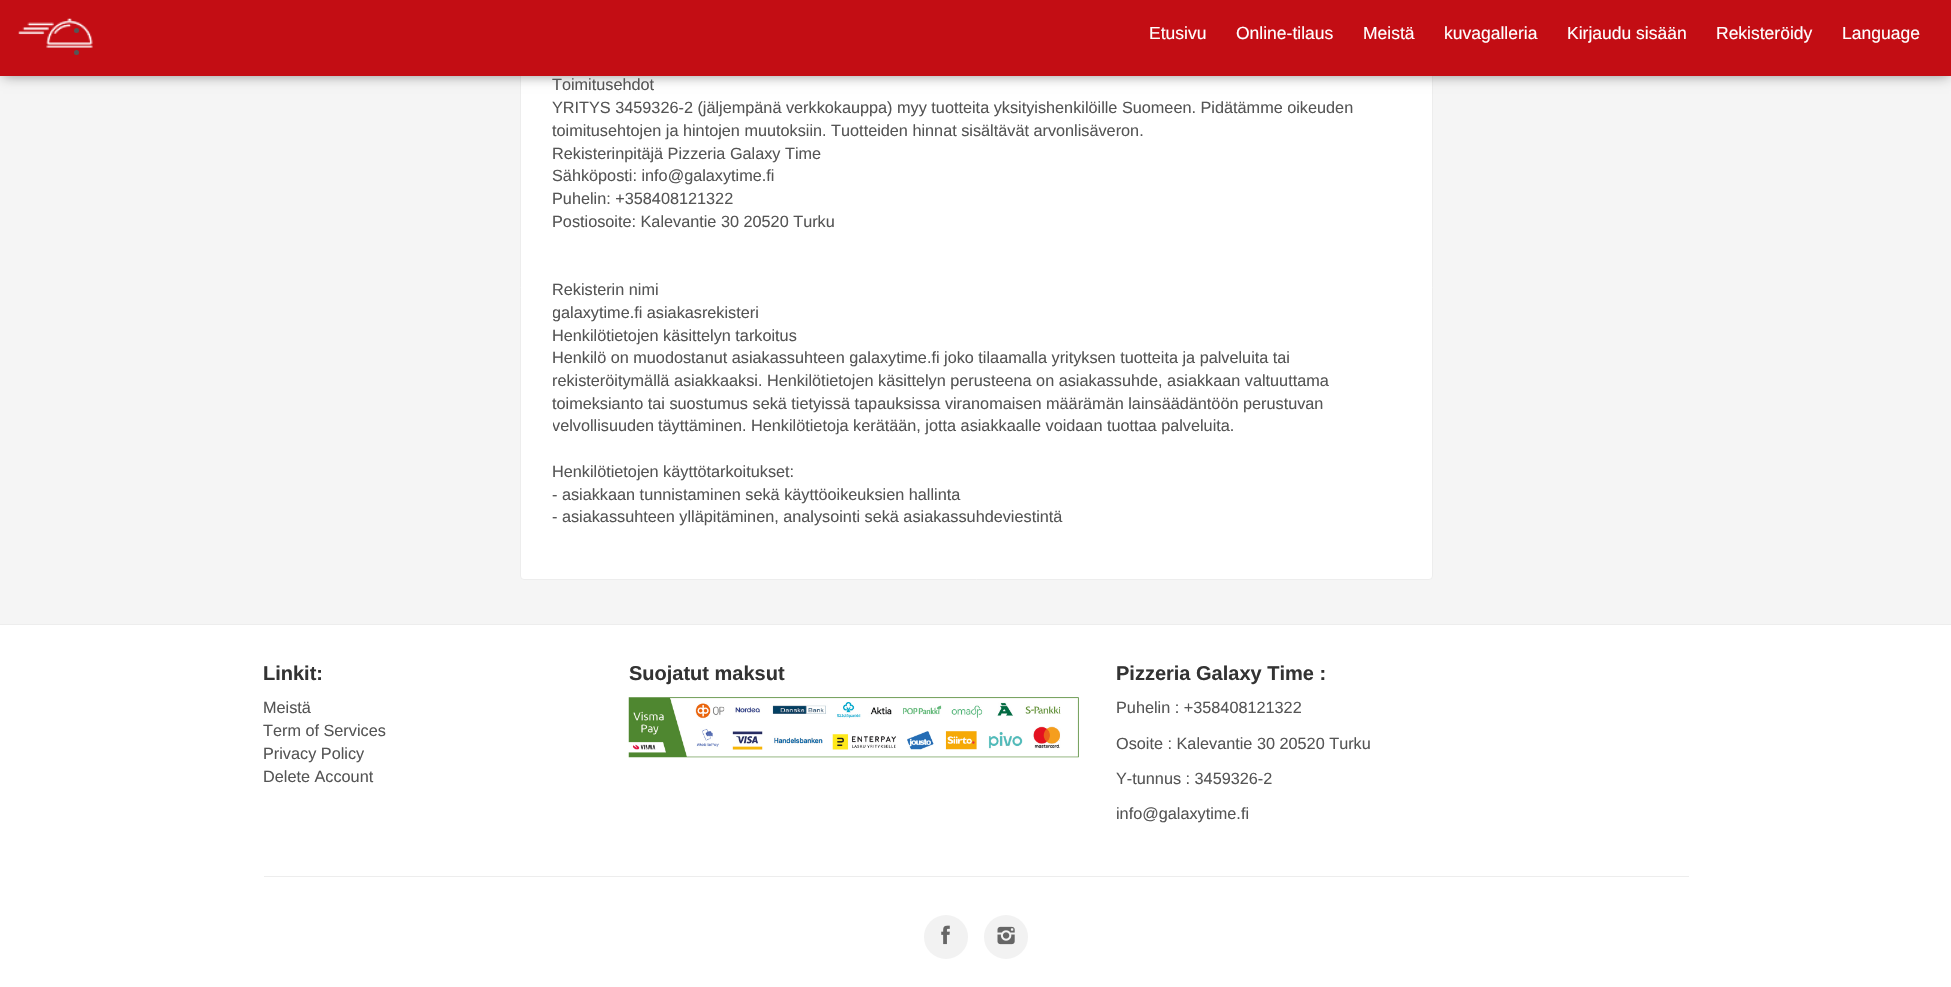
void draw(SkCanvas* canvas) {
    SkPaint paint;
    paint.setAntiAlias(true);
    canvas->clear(0xFFF5F5F5);
    paint.setColor(0xFFFFFFFF);
    canvas->drawRoundRect(SkRect::MakeXYWH(520.5f, -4.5f, 912, 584), 3.5f, 3.5f, paint);
    paint.setStyle(SkPaint::kStroke_Style);
    paint.setStrokeWidth(1);
    paint.setColor(0xFFEDEDED);
    canvas->drawRoundRect(SkRect::MakeXYWH(520.5f, -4.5f, 912, 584), 3.5f, 3.5f, paint);
    paint.setStyle(SkPaint::kFill_Style);
    paint.setColor(0x69000000);
    paint.setMaskFilter(SkMaskFilter::MakeBlur(kNormal_SkBlurStyle, 6));
    canvas->drawRect(SkRect::MakeXYWH(3, 5, 1946, 71), paint);
    paint.setMaskFilter(nullptr);
    paint.setColor(0xFFC30D14);
    canvas->drawRect(SkRect::MakeXYWH(0, 0, 1951, 76), paint);
    canvas->drawImageRect(SkImages::DeferredFromEncodedData(SkData::MakeFromFileName("img1.png")), SkRect::MakeXYWH(18, 18, 75, 30), SkSamplingOptions());
    paint.setColor(0xFF555555);
    canvas->drawCircle(76.5f, 30.5f, 2.5f, paint);
    canvas->drawCircle(76.5f, 52.5f, 2.5f, paint);
    SkFont font1(fontMgr->matchFamilyStyle("Liberation Sans", SkFontStyle::Normal()), 17.5f);
    font1.setSubpixel(true);
    paint.setColor(0xFFFFFFFF);
    canvas->drawString("Etusivu", 1149, 39, font1, paint);
    canvas->drawString("Online-tilaus", 1236, 39, font1, paint);
    canvas->drawString("Meistä", 1363, 39, font1, paint);
    canvas->drawString("kuvagalleria", 1444, 39, font1, paint);
    canvas->drawString("Kirjaudu sisään", 1567, 39, font1, paint);
    canvas->drawString("Rekisteröidy", 1716, 39, font1, paint);
    canvas->drawString("Language", 1842, 39, font1, paint);
    SkFont font2(fontMgr->matchFamilyStyle("Liberation Sans", SkFontStyle::Normal()), 16.25f);
    font2.setSubpixel(true);
    paint.setColor(0xFF555555);
    canvas->drawString("Toimitusehdot", 552, 90, font2, paint);
    canvas->drawString("YRITYS 3459326-2 (jäljempänä verkkokauppa) myy tuotteita yksityishenkilöille Suomeen. Pidätämme oikeuden", 552, 113, font2, paint);
    canvas->drawString("toimitusehtojen ja hintojen muutoksiin. Tuotteiden hinnat sisältävät arvonlisäveron.", 552, 136, font2, paint);
    canvas->drawString("Rekisterinpitäjä Pizzeria Galaxy Time", 552, 159, font2, paint);
    canvas->drawString("Sähköposti: info@galaxytime.fi", 552, 181, font2, paint);
    canvas->drawString("Puhelin: +358408121322", 552, 204, font2, paint);
    canvas->drawString("Postiosoite: Kalevantie 30 20520 Turku", 552, 227, font2, paint);
    canvas->drawString("Rekisterin nimi", 552, 295, font2, paint);
    canvas->save();
    canvas->clipRect(SkRect::MakeXYWH(553, 29, 847, 500));
    canvas->drawString("galaxytime.fi asiakasrekisteri", 552, 318, font2, paint);
    canvas->restore();
    canvas->drawString("Henkilötietojen käsittelyn tarkoitus", 552, 341, font2, paint);
    canvas->drawString("Henkilö on muodostanut asiakassuhteen galaxytime.fi joko tilaamalla yrityksen tuotteita ja palveluita tai", 552, 363, font2, paint);
    canvas->drawString("rekisteröitymällä asiakkaaksi. Henkilötietojen käsittelyn perusteena on asiakassuhde, asiakkaan valtuuttama", 552, 386, font2, paint);
    canvas->drawString("toimeksianto tai suostumus sekä tietyissä tapauksissa viranomaisen määrämän lainsäädäntöön perustuvan", 552, 409, font2, paint);
    canvas->save();
    canvas->clipRect(SkRect::MakeXYWH(553, 29, 847, 500));
    canvas->drawString("velvollisuuden", 552, 431, font2, paint);
    canvas->restore();
    canvas->drawString("täyttäminen. Henkilötietoja kerätään, jotta asiakkaalle voidaan tuottaa palveluita.", 658, 431, font2, paint);
    canvas->drawString("Henkilötietojen käyttötarkoitukset:", 552, 477, font2, paint);
    canvas->drawString("- asiakkaan tunnistaminen sekä käyttöoikeuksien hallinta", 552, 500, font2, paint);
    canvas->drawString("- asiakassuhteen ylläpitäminen, analysointi sekä asiakassuhdeviestintä", 552, 522, font2, paint);
    paint.setColor(0xFFFFFFFF);
    canvas->drawRect(SkRect::MakeXYWH(0, 625, 1951, 362), paint);
    paint.setColor(0xFFEDEDED);
    canvas->drawRect(SkRect::MakeXYWH(0, 624, 1951, 1), paint);
    SkFont font3(fontMgr->matchFamilyStyle("Liberation Sans", SkFontStyle::Bold()), 20);
    font3.setSubpixel(true);
    paint.setColor(0xFF333333);
    canvas->drawString("Linkit:", 263, 680, font3, paint);
    paint.setColor(0xFF555555);
    canvas->drawString("Meistä", 263, 713, font2, paint);
    canvas->drawString("Term of Services", 263, 736, font2, paint);
    canvas->drawString("Privacy Policy", 263, 759, font2, paint);
    canvas->drawString("Delete Account", 263, 782, font2, paint);
    paint.setColor(0xFF333333);
    canvas->drawString("Suojatut maksut", 629, 680, font3, paint);
    canvas->drawImageRect(SkImages::DeferredFromEncodedData(SkData::MakeFromFileName("img2.png")), SkRect::MakeXYWH(628, 697, 451, 61), SkSamplingOptions());
    canvas->drawString("Pizzeria Galaxy Time :", 1116, 680, font3, paint);
    paint.setColor(0xFF555555);
    canvas->drawString("Puhelin : +358408121322", 1116, 713, font2, paint);
    canvas->drawString("Osoite : Kalevantie 30 20520 Turku", 1116, 749, font2, paint);
    canvas->drawString("Y-tunnus : 3459326-2", 1116, 784, font2, paint);
    canvas->drawString("info@galaxytime.fi", 1116, 819, font2, paint);
    paint.setColor(0xFFEDEDED);
    canvas->drawRect(SkRect::MakeXYWH(264, 876, 1425, 1), paint);
    paint.setColor(0xFFF2F2F2);
    canvas->drawCircle(946, 937, 22, paint);
    canvas->drawImageRect(SkImages::DeferredFromEncodedData(SkData::MakeFromFileName("img3.png")), SkRect::MakeXYWH(941, 925, 9, 20), SkSamplingOptions());
    canvas->drawCircle(1006, 937, 22, paint);
    canvas->drawImageRect(SkImages::DeferredFromEncodedData(SkData::MakeFromFileName("img4.png")), SkRect::MakeXYWH(997, 926, 18, 19), SkSamplingOptions());
}
